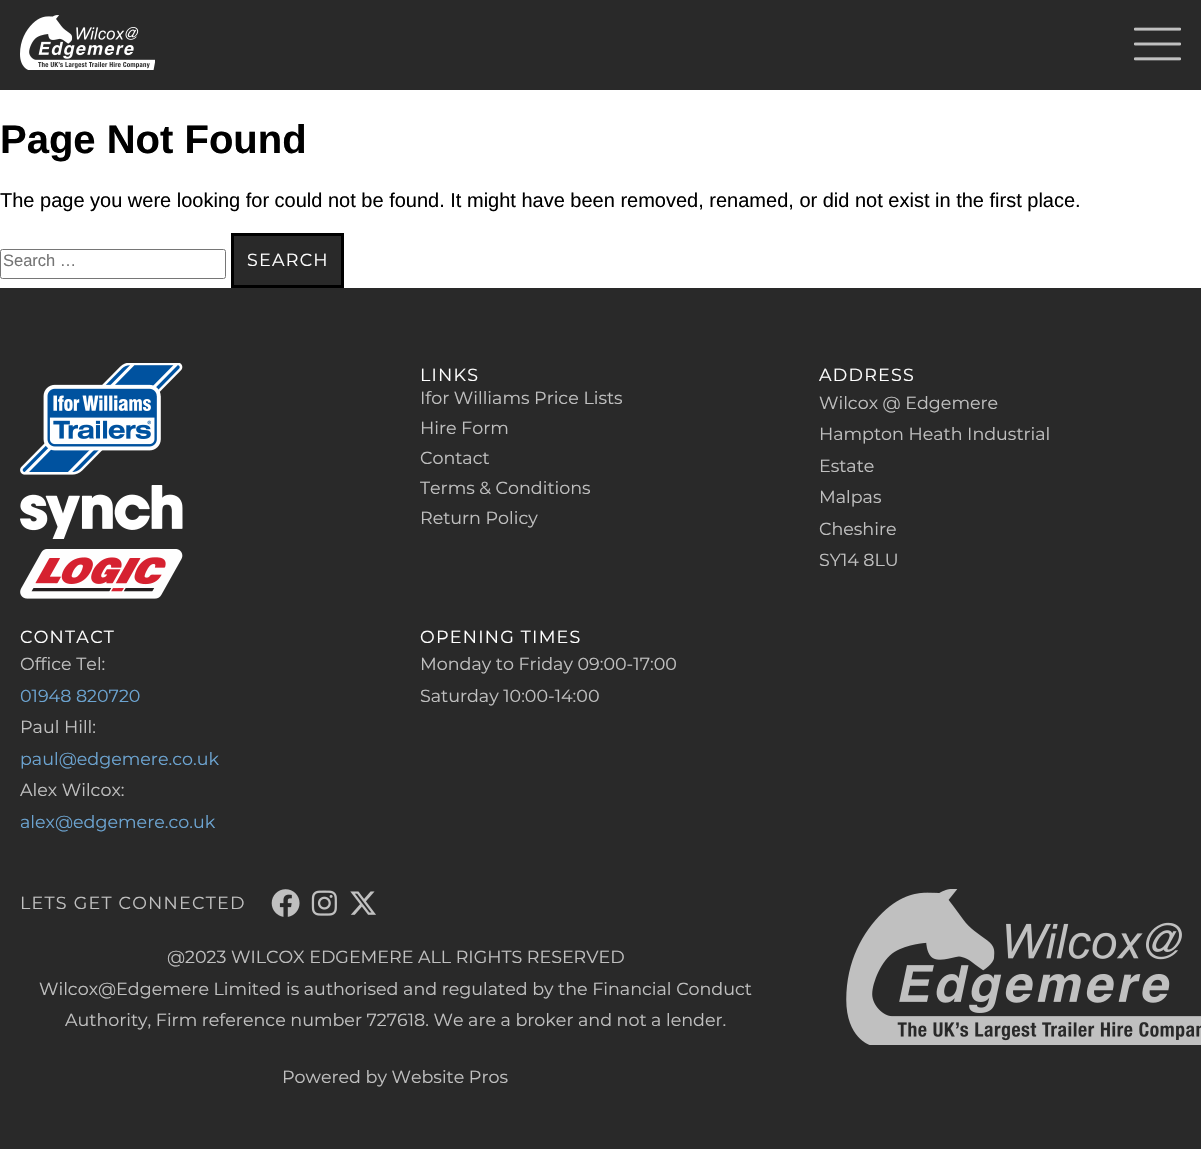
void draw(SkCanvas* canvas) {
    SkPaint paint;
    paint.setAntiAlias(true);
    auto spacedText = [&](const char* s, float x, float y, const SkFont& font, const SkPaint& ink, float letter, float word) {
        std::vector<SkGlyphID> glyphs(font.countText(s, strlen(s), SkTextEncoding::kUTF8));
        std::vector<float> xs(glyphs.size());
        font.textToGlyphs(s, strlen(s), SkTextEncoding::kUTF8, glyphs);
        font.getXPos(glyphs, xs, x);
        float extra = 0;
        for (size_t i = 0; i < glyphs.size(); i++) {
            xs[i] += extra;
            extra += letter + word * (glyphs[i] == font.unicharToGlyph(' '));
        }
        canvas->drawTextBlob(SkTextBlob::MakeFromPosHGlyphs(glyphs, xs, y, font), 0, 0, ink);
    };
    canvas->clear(0xFFFFFFFF);
    paint.setColor(0xFF292929);
    canvas->drawRect(SkRect::MakeXYWH(0, 0, 1201, 90), paint);
    canvas->drawImageRect(SkImages::DeferredFromEncodedData(SkData::MakeFromFileName("img1.png")), SkRect::MakeXYWH(20, 15, 135, 55), SkSamplingOptions());
    canvas->drawImageRect(SkImages::DeferredFromEncodedData(SkData::MakeFromFileName("img2.png")), SkRect::MakeXYWH(1134, 27, 47, 34), SkSamplingOptions());
    SkFont font1(fontMgr->matchFamilyStyle("Liberation Sans", SkFontStyle::Bold()), 40);
    font1.setSubpixel(true);
    paint.setColor(0xFF000000);
    canvas->drawString("Page Not Found", 0, 153, font1, paint);
    SkFont font2(fontMgr->matchFamilyStyle("Liberation Sans", SkFontStyle::Normal()), 20);
    font2.setSubpixel(true);
    canvas->drawString("The page you were looking for could not be found. It might have been removed, renamed, or did not exist in the first place.", 0, 207, font2, paint);
    paint.setStyle(SkPaint::kStroke_Style);
    paint.setStrokeWidth(1);
    paint.setColor(0xFF767676);
    canvas->drawRoundRect(SkRect::MakeXYWH(0.5f, 249.5f, 225, 29), 2, 2, paint);
    SkFont font3(fontMgr->matchFamilyStyle("Liberation Sans", SkFontStyle::Normal()), 16.5f);
    font3.setSubpixel(true);
    paint.setStyle(SkPaint::kFill_Style);
    paint.setColor(0xFF757575);
    canvas->drawString("Search …", 3, 266, font3, paint);
    paint.setColor(0xFF292929);
    canvas->drawRect(SkRect::MakeXYWH(232.5f, 234.5f, 110, 52), paint);
    paint.setStyle(SkPaint::kStroke_Style);
    paint.setStrokeWidth(3);
    paint.setColor(0xFF000000);
    canvas->drawRect(SkRect::MakeXYWH(232.5f, 234.5f, 110, 52), paint);
    SkFont font4(fontMgr->matchFamilyStyle("Montserrat", SkFontStyle::Normal()), 17.5f);
    font4.setSubpixel(true);
    paint.setStyle(SkPaint::kFill_Style);
    paint.setColor(0xFFFFFFFF);
    spacedText("SEARCH", 247, 266, font4, paint, 1.25f, 0);
    paint.setColor(0xFF292929);
    canvas->drawRect(SkRect::MakeXYWH(0, 288, 1201, 861), paint);
    canvas->drawImageRect(SkImages::DeferredFromEncodedData(SkData::MakeFromFileName("img3.png")), SkRect::MakeXYWH(20, 363, 163, 112), SkSamplingOptions());
    canvas->drawImageRect(SkImages::DeferredFromEncodedData(SkData::MakeFromFileName("img4.png")), SkRect::MakeXYWH(20, 485, 163, 54), SkSamplingOptions());
    canvas->drawImageRect(SkImages::DeferredFromEncodedData(SkData::MakeFromFileName("img5.png")), SkRect::MakeXYWH(20, 549, 163, 50), SkSamplingOptions());
    paint.setColor(0xFFFFFFFF);
    spacedText("LINKS", 420, 381, font4, paint, 1.25f, 0);
    paint.setColor(0xFFC0C0C0);
    canvas->drawString("Ifor Williams Price Lists", 420, 404, font4, paint);
    canvas->drawString("Hire Form", 420, 434, font4, paint);
    canvas->drawString("Contact", 420, 464, font4, paint);
    canvas->drawString("Terms & Conditions", 420, 494, font4, paint);
    canvas->drawString("Return Policy", 420, 524, font4, paint);
    paint.setColor(0xFFFFFFFF);
    spacedText("ADDRESS", 819, 381, font4, paint, 1.25f, 0);
    paint.setColor(0xFFC0C0C0);
    canvas->drawString("Wilcox @ Edgemere", 819, 409, font4, paint);
    canvas->drawString("Hampton Heath Industrial", 819, 440, font4, paint);
    canvas->drawString("Estate", 819, 472, font4, paint);
    canvas->drawString("Malpas", 819, 503, font4, paint);
    canvas->drawString("Cheshire", 819, 535, font4, paint);
    canvas->drawString("SY14 8LU", 819, 566, font4, paint);
    paint.setColor(0xFFFFFFFF);
    spacedText("CONTACT", 20, 643, font4, paint, 1.25f, 0);
    paint.setColor(0xFFC0C0C0);
    canvas->drawString("Office Tel:", 20, 670, font4, paint);
    paint.setColor(0xFF6CA4D1);
    canvas->drawString("01948 820720", 20, 702, font4, paint);
    paint.setColor(0xFFC0C0C0);
    canvas->drawString("Paul Hill:", 20, 733, font4, paint);
    paint.setColor(0xFF6CA4D1);
    canvas->drawString("paul@edgemere.co.uk", 20, 765, font4, paint);
    paint.setColor(0xFFC0C0C0);
    canvas->drawString("Alex Wilcox:", 20, 796, font4, paint);
    paint.setColor(0xFF6CA4D1);
    canvas->drawString("alex@edgemere.co.uk", 20, 828, font4, paint);
    paint.setColor(0xFFFFFFFF);
    spacedText("OPENING TIMES", 420, 643, font4, paint, 1.25f, 0);
    paint.setColor(0xFFC0C0C0);
    canvas->drawString("Monday to Friday 09:00-17:00", 420, 670, font4, paint);
    canvas->drawString("Saturday 10:00-14:00", 420, 702, font4, paint);
    spacedText("LETS GET CONNECTED", 20, 909, font4, paint, 1.25f, 0);
    canvas->drawImageRect(SkImages::DeferredFromEncodedData(SkData::MakeFromFileName("img6.png")), SkRect::MakeXYWH(271, 889, 29, 28), SkSamplingOptions());
    canvas->drawImageRect(SkImages::DeferredFromEncodedData(SkData::MakeFromFileName("img7.png")), SkRect::MakeXYWH(311, 890, 26, 26), SkSamplingOptions());
    canvas->drawImageRect(SkImages::DeferredFromEncodedData(SkData::MakeFromFileName("img8.png")), SkRect::MakeXYWH(350, 891, 26, 24), SkSamplingOptions());
    canvas->drawString("@2023 WILCOX EDGEMERE ALL RIGHTS RESERVED", 167, 963, font4, paint);
    canvas->drawString("Wilcox@Edgemere Limited is authorised and regulated by the Financial Conduct", 39, 995, font4, paint);
    canvas->drawString("Authority, Firm reference number 727618. We are a broker and not a lender.", 65, 1026, font4, paint);
    canvas->drawString("Powered by Website Pros", 282, 1083, font4, paint);
    canvas->drawImageRect(SkImages::DeferredFromEncodedData(SkData::MakeFromFileName("img9.png")), SkRect::MakeXYWH(846, 889, 355, 156), SkSamplingOptions());
}
